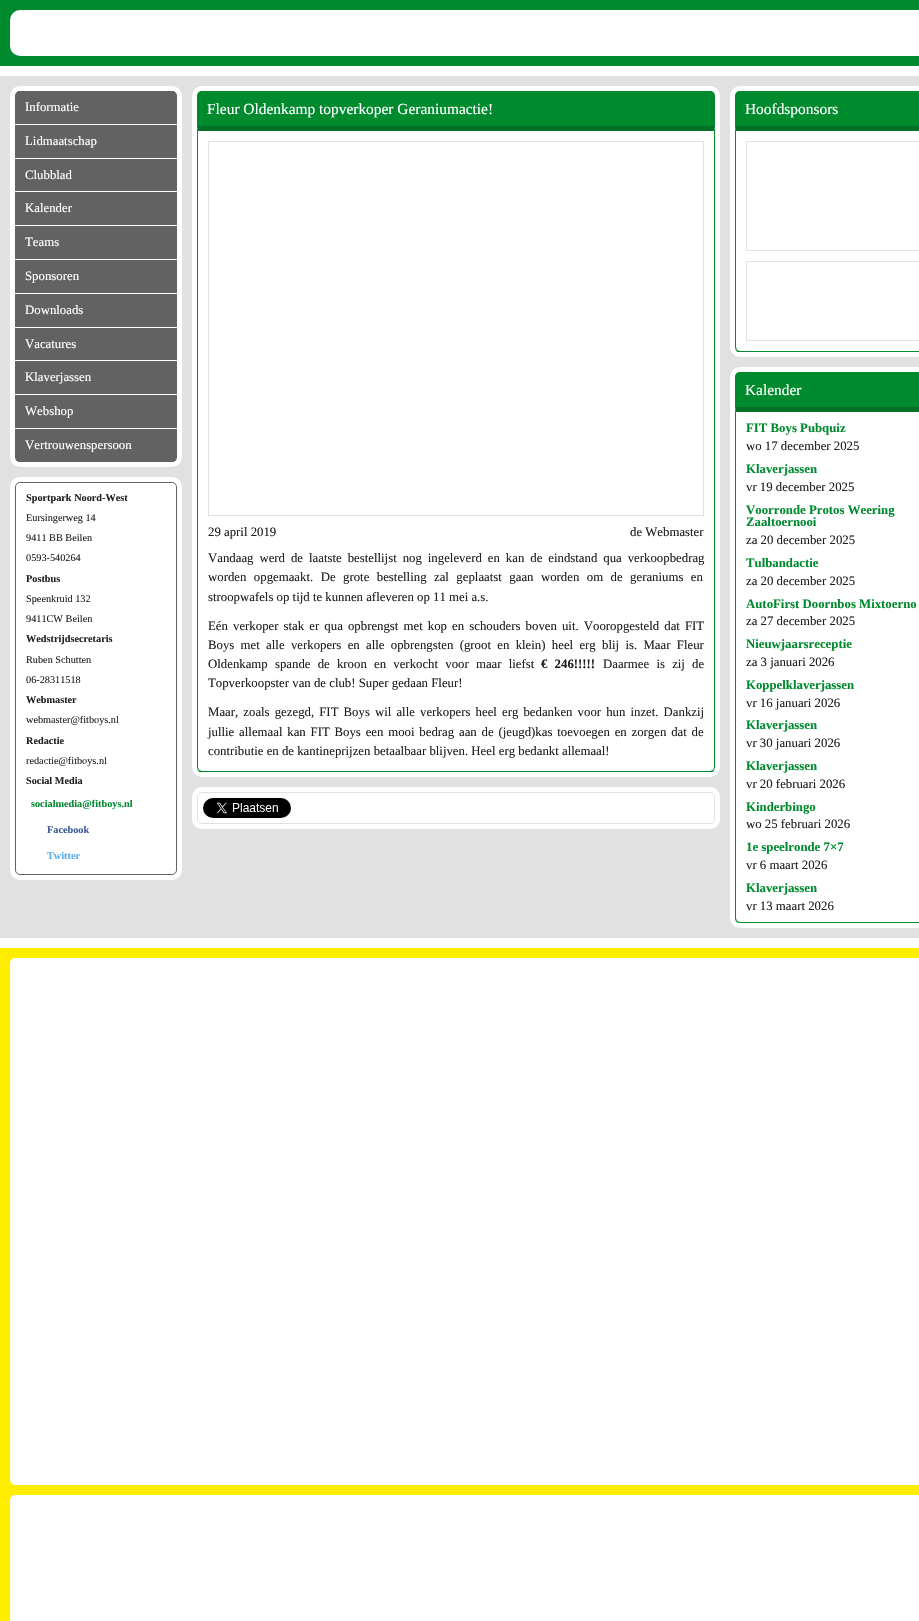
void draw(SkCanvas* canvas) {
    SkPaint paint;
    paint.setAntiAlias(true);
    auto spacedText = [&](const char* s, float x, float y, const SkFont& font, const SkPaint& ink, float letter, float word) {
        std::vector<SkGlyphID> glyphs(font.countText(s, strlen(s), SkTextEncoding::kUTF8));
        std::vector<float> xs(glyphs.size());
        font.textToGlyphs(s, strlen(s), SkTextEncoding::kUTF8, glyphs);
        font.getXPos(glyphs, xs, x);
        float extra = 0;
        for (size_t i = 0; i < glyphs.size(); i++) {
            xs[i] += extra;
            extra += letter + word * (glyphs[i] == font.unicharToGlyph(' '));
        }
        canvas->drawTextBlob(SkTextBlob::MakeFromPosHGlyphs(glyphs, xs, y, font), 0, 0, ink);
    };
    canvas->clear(0xFF008A2E);
    paint.setColor(0xFFFFFFFF);
    canvas->drawRect(SkRect::MakeXYWH(0, 66, 919, 10), paint);
    canvas->drawRoundRect(SkRect::MakeXYWH(12.5f, 12.5f, 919, 41), 7.5f, 7.5f, paint);
    paint.setStyle(SkPaint::kStroke_Style);
    paint.setStrokeWidth(5);
    canvas->drawRoundRect(SkRect::MakeXYWH(12.5f, 12.5f, 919, 41), 7.5f, 7.5f, paint);
    paint.setStyle(SkPaint::kFill_Style);
    paint.setColor(0xFFE1E1E1);
    canvas->drawRect(SkRect::MakeXYWH(0, 76, 919, 862), paint);
    paint.setColor(0xFFFFFFFF);
    canvas->drawRect(SkRect::MakeXYWH(0, 938, 919, 10), paint);
    canvas->drawRoundRect(SkRect::MakeXYWH(12.5f, 88.5f, 167, 376), 7.5f, 7.5f, paint);
    paint.setStyle(SkPaint::kStroke_Style);
    canvas->drawRoundRect(SkRect::MakeXYWH(12.5f, 88.5f, 167, 376), 7.5f, 7.5f, paint);
    paint.setStyle(SkPaint::kFill_Style);
    paint.setColor(0xFF626262);
    canvas->drawPath(SkPathBuilder().moveTo(20, 91).lineTo(172, 91).cubicTo(175, 91, 177, 93, 177, 96).lineTo(177, 124).lineTo(15, 124).lineTo(15, 96).cubicTo(15, 93, 17, 91, 20, 91).close().detach(), paint);
    SkFont font1(fontMgr->matchFamilyStyle("Liberation Serif", SkFontStyle::Normal()), 12.8f);
    font1.setSubpixel(true);
    paint.setColor(0xFFFFFFFF);
    canvas->drawString("Informatie", 25, 111, font1, paint);
    paint.setColor(0xFF626262);
    canvas->drawRect(SkRect::MakeXYWH(15, 125, 162, 33), paint);
    paint.setColor(0xFFFFFFFF);
    canvas->drawString("Lidmaatschap", 25, 145, font1, paint);
    paint.setColor(0xFF626262);
    canvas->drawRect(SkRect::MakeXYWH(15, 159, 162, 32), paint);
    paint.setColor(0xFFFFFFFF);
    canvas->drawString("Clubblad", 25, 179, font1, paint);
    paint.setColor(0xFF626262);
    canvas->drawRect(SkRect::MakeXYWH(15, 192, 162, 33), paint);
    paint.setColor(0xFFFFFFFF);
    canvas->drawString("Kalender", 25, 212, font1, paint);
    paint.setColor(0xFF626262);
    canvas->drawRect(SkRect::MakeXYWH(15, 226, 162, 33), paint);
    paint.setColor(0xFFFFFFFF);
    canvas->drawString("Teams", 25, 246, font1, paint);
    paint.setColor(0xFF626262);
    canvas->drawRect(SkRect::MakeXYWH(15, 260, 162, 33), paint);
    paint.setColor(0xFFFFFFFF);
    canvas->drawString("Sponsoren", 25, 280, font1, paint);
    paint.setColor(0xFF626262);
    canvas->drawRect(SkRect::MakeXYWH(15, 294, 162, 33), paint);
    paint.setColor(0xFFFFFFFF);
    canvas->drawString("Downloads", 25, 314, font1, paint);
    paint.setColor(0xFF626262);
    canvas->drawRect(SkRect::MakeXYWH(15, 328, 162, 32), paint);
    paint.setColor(0xFFFFFFFF);
    canvas->drawString("Vacatures", 25, 348, font1, paint);
    paint.setColor(0xFF626262);
    canvas->drawRect(SkRect::MakeXYWH(15, 361, 162, 33), paint);
    paint.setColor(0xFFFFFFFF);
    canvas->drawString("Klaverjassen", 25, 381, font1, paint);
    paint.setColor(0xFF626262);
    canvas->drawRect(SkRect::MakeXYWH(15, 395, 162, 33), paint);
    paint.setColor(0xFFFFFFFF);
    canvas->drawString("Webshop", 25, 415, font1, paint);
    paint.setColor(0xFF626262);
    canvas->drawPath(SkPathBuilder().moveTo(15, 429).lineTo(177, 429).lineTo(177, 457).cubicTo(177, 460, 175, 462, 172, 462).lineTo(20, 462).cubicTo(17, 462, 15, 460, 15, 457).close().detach(), paint);
    paint.setColor(0xFFFFFFFF);
    canvas->drawString("Vertrouwenspersoon", 25, 449, font1, paint);
    canvas->drawRoundRect(SkRect::MakeXYWH(10, 477, 172, 403), 10, 10, paint);
    paint.setStyle(SkPaint::kStroke_Style);
    paint.setStrokeWidth(1);
    paint.setColor(0xFF626262);
    canvas->drawRoundRect(SkRect::MakeXYWH(15.5f, 482.5f, 161, 392), 4.5f, 4.5f, paint);
    SkFont font2(fontMgr->matchFamilyStyle("Liberation Serif", SkFontStyle::Bold()), 10.25f);
    font2.setSubpixel(true);
    paint.setStyle(SkPaint::kFill_Style);
    paint.setColor(0xFF202020);
    canvas->drawString("Sportpark Noord-West", 26, 501, font2, paint);
    SkFont font3(fontMgr->matchFamilyStyle("Liberation Serif", SkFontStyle::Normal()), 10.25f);
    font3.setSubpixel(true);
    canvas->drawString("Eursingerweg 14", 26, 521, font3, paint);
    canvas->drawString("9411 BB Beilen", 26, 541, font3, paint);
    canvas->drawString("0593-540264", 26, 561, font3, paint);
    canvas->drawString("Postbus", 26, 582, font2, paint);
    canvas->drawString("Speenkruid 132", 26, 602, font3, paint);
    canvas->drawString("9411CW Beilen", 26, 622, font3, paint);
    canvas->drawString("Wedstrijdsecretaris", 26, 642, font2, paint);
    canvas->drawString("Ruben Schutten", 26, 663, font3, paint);
    canvas->drawString("06-28311518", 26, 683, font3, paint);
    canvas->drawString("Webmaster", 26, 703, font2, paint);
    canvas->drawString("webmaster@fitboys.nl", 26, 723, font3, paint);
    canvas->drawString("Redactie", 26, 744, font2, paint);
    canvas->drawString("redactie@fitboys.nl", 26, 764, font3, paint);
    canvas->drawString("Social Media", 26, 784, font2, paint);
    paint.setColor(0xFF008A2E);
    canvas->drawString("socialmedia@fitboys.nl", 31, 807, font2, paint);
    paint.setColor(0xFF3B5998);
    canvas->drawString("Facebook", 47, 833, font2, paint);
    paint.setColor(0xFF55ACEE);
    canvas->drawString("Twitter", 47, 859, font2, paint);
    paint.setColor(0xFFFFFFFF);
    canvas->drawRoundRect(SkRect::MakeXYWH(192, 86, 528, 691), 10, 10, paint);
    paint.setColor(0xFF008A2E);
    canvas->drawPath(SkPathBuilder().moveTo(202, 91).lineTo(710, 91).cubicTo(713, 91, 715, 93, 715, 96).lineTo(715, 126).lineTo(197, 126).lineTo(197, 96).cubicTo(197, 93, 199, 91, 202, 91).close().detach(), paint);
    SkFont font4(fontMgr->matchFamilyStyle("Liberation Serif", SkFontStyle::Normal()), 15.4f);
    font4.setSubpixel(true);
    paint.setColor(0xFFFFFFFF);
    canvas->drawString("Fleur Oldenkamp topverkoper Geraniumactie!", 207, 114, font4, paint);
    paint.setColor(0xFF007126);
    canvas->drawPath(SkPathBuilder().moveTo(197, 126).lineTo(198, 131).lineTo(714, 131).lineTo(715, 126).close().detach(), paint);
    paint.setColor(0xFF008A2E);
    canvas->drawPath(SkPathBuilder().moveTo(715, 126).lineTo(714, 131).lineTo(714, 767).cubicTo(714, 768, 714, 769, 713, 770).lineTo(714, 771).cubicTo(714, 770, 715, 768, 715, 767).close().detach(), paint);
    canvas->drawPath(SkPathBuilder().moveTo(202, 772).lineTo(710, 772).cubicTo(712, 772, 713, 772, 714, 771).lineTo(713, 770).lineTo(710, 771).lineTo(202, 771).lineTo(199, 770).lineTo(198, 771).cubicTo(199, 772, 200, 772, 202, 772).close().detach(), paint);
    canvas->drawPath(SkPathBuilder().moveTo(198, 131).lineTo(197, 126).lineTo(197, 767).cubicTo(197, 768, 198, 770, 198, 771).lineTo(199, 770).lineTo(198, 767).close().detach(), paint);
    paint.setStyle(SkPaint::kStroke_Style);
    paint.setColor(0xFFE1E1E1);
    canvas->drawRect(SkRect::MakeXYWH(208.5f, 141.5f, 495, 374), paint);
    paint.setStyle(SkPaint::kFill_Style);
    paint.setColor(0xFF202020);
    canvas->drawString("29 april 2019", 208, 536, font1, paint);
    canvas->drawString("de Webmaster", 630, 536, font1, paint);
    spacedText("Vandaag werd de laatste bestellijst nog ingeleverd en kan de eindstand qua verkoopbedrag", 208, 562, font1, paint, 0, 2.75f);
    spacedText("worden opgemaakt. De grote bestelling zal geplaatst gaan worden om de geraniums en", 208, 581, font1, paint, 0, 4.25f);
    canvas->drawString("stroopwafels op tijd te kunnen afleveren op 11 mei a.s.", 208, 601, font1, paint);
    spacedText("Eén verkoper stak er qua opbrengst met kop en schouders boven uit. Vooropgesteld dat FIT", 208, 630, font1, paint, 0, 1.9f);
    spacedText("Boys met alle verkopers en alle opbrengsten (groot en klein) heel erg blij is. Maar Fleur", 208, 649, font1, paint, 0, 3.1f);
    spacedText("Oldenkamp spande de kroon en verkocht voor maar liefst", 208, 668, font1, paint, 0, 4);
    SkFont font5(fontMgr->matchFamilyStyle("Liberation Serif", SkFontStyle::Bold()), 12.8f);
    font5.setSubpixel(true);
    spacedText("€ 246!!!!!", 541, 668, font5, paint, 0, 4);
    spacedText("Daarmee is zij de", 603, 668, font1, paint, 0, 4);
    canvas->drawString("Topverkoopster van de club! Super gedaan Fleur!", 208, 687, font1, paint);
    spacedText("Maar, zoals gezegd, FIT Boys wil alle verkopers heel erg bedanken voor hun inzet. Dankzij", 208, 716, font1, paint, 0, 1.9f);
    spacedText("jullie allemaal kan FIT Boys een mooi bedrag aan de (jeugd)kas toevoegen en zorgen dat de", 208, 736, font1, paint, 0, 1.6f);
    canvas->drawString("contributie en de kantineprijzen betaalbaar blijven. Heel erg bedankt allemaal!", 208, 755, font1, paint);
    paint.setColor(0xFFFFFFFF);
    canvas->drawRoundRect(SkRect::MakeXYWH(192, 787, 528, 42), 10, 10, paint);
    paint.setStyle(SkPaint::kStroke_Style);
    paint.setColor(0xFFE1E1E1);
    canvas->drawRoundRect(SkRect::MakeXYWH(197.5f, 792.5f, 517, 31), 4.5f, 4.5f, paint);
    canvas->drawImageRect(SkImages::DeferredFromEncodedData(SkData::MakeFromFileName("img1.png")), SkRect::MakeXYWH(203, 798, 88, 20), SkSamplingOptions());
    paint.setStyle(SkPaint::kFill_Style);
    paint.setColor(0xFFFFFFFF);
    canvas->drawRoundRect(SkRect::MakeXYWH(730, 86, 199, 271), 10, 10, paint);
    paint.setColor(0xFF008A2E);
    canvas->drawPath(SkPathBuilder().moveTo(740, 91).lineTo(919, 91).cubicTo(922, 91, 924, 93, 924, 96).lineTo(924, 126).lineTo(735, 126).lineTo(735, 96).cubicTo(735, 93, 737, 91, 740, 91).close().detach(), paint);
    paint.setColor(0xFFFFFFFF);
    canvas->drawString("Hoofdsponsors", 745, 114, font4, paint);
    paint.setColor(0xFF007126);
    canvas->drawPath(SkPathBuilder().moveTo(735, 126).lineTo(736, 131).lineTo(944, 131).lineTo(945, 126).close().detach(), paint);
    paint.setColor(0xFF008A2E);
    canvas->drawPath(SkPathBuilder().moveTo(740, 352).lineTo(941, 352).lineTo(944, 351).lineTo(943, 350).lineTo(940, 351).lineTo(740, 351).lineTo(737, 350).lineTo(736, 351).cubicTo(737, 352, 738, 352, 740, 352).close().detach(), paint);
    canvas->drawPath(SkPathBuilder().moveTo(736, 131).lineTo(735, 126).lineTo(735, 347).cubicTo(735, 348, 736, 350, 736, 351).lineTo(737, 350).lineTo(736, 347).close().detach(), paint);
    paint.setStyle(SkPaint::kStroke_Style);
    paint.setColor(0xFFE1E1E1);
    canvas->drawRect(SkRect::MakeXYWH(746.5f, 141.5f, 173, 109), paint);
    canvas->drawRect(SkRect::MakeXYWH(746.5f, 261.5f, 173, 79), paint);
    paint.setStyle(SkPaint::kFill_Style);
    paint.setColor(0xFFFFFFFF);
    canvas->drawRoundRect(SkRect::MakeXYWH(730, 367, 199, 561), 10, 10, paint);
    paint.setColor(0xFF008A2E);
    canvas->drawPath(SkPathBuilder().moveTo(740, 372).lineTo(919, 372).cubicTo(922, 372, 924, 374, 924, 377).lineTo(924, 407).lineTo(735, 407).lineTo(735, 377).cubicTo(735, 374, 737, 372, 740, 372).close().detach(), paint);
    paint.setColor(0xFFFFFFFF);
    canvas->drawString("Kalender", 745, 395, font4, paint);
    paint.setColor(0xFF007126);
    canvas->drawPath(SkPathBuilder().moveTo(735, 407).lineTo(736, 412).lineTo(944, 412).lineTo(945, 407).close().detach(), paint);
    paint.setColor(0xFF008A2E);
    canvas->drawPath(SkPathBuilder().moveTo(740, 923).lineTo(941, 923).lineTo(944, 922).lineTo(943, 921).lineTo(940, 922).lineTo(740, 922).lineTo(737, 921).lineTo(736, 922).cubicTo(737, 922, 738, 923, 740, 923).close().detach(), paint);
    canvas->drawPath(SkPathBuilder().moveTo(736, 412).lineTo(735, 407).lineTo(735, 918).cubicTo(735, 920, 736, 921, 736, 922).lineTo(737, 921).lineTo(736, 918).close().detach(), paint);
    canvas->drawString("FIT Boys Pubquiz", 746, 432, font5, paint);
    paint.setColor(0xFF202020);
    canvas->drawString("wo 17 december 2025", 746, 450, font1, paint);
    paint.setColor(0xFF008A2E);
    canvas->drawString("Klaverjassen", 746, 473, font5, paint);
    paint.setColor(0xFF202020);
    canvas->drawString("vr 19 december 2025", 746, 491, font1, paint);
    paint.setColor(0xFF008A2E);
    canvas->drawString("Voorronde Protos Weering", 746, 514, font5, paint);
    canvas->drawString("Zaaltoernooi", 746, 526, font5, paint);
    paint.setColor(0xFF202020);
    canvas->drawString("za 20 december 2025", 746, 544, font1, paint);
    paint.setColor(0xFF008A2E);
    canvas->drawString("Tulbandactie", 746, 567, font5, paint);
    paint.setColor(0xFF202020);
    canvas->drawString("za 20 december 2025", 746, 585, font1, paint);
    paint.setColor(0xFF008A2E);
    canvas->drawString("AutoFirst Doornbos Mixtoerno", 746, 608, font5, paint);
    paint.setColor(0xFF202020);
    canvas->drawString("za 27 december 2025", 746, 625, font1, paint);
    paint.setColor(0xFF008A2E);
    canvas->drawString("Nieuwjaarsreceptie", 746, 648, font5, paint);
    paint.setColor(0xFF202020);
    canvas->drawString("za 3 januari 2026", 746, 666, font1, paint);
    paint.setColor(0xFF008A2E);
    canvas->drawString("Koppelklaverjassen", 746, 689, font5, paint);
    paint.setColor(0xFF202020);
    canvas->drawString("vr 16 januari 2026", 746, 707, font1, paint);
    paint.setColor(0xFF008A2E);
    canvas->drawString("Klaverjassen", 746, 729, font5, paint);
    paint.setColor(0xFF202020);
    canvas->drawString("vr 30 januari 2026", 746, 747, font1, paint);
    paint.setColor(0xFF008A2E);
    canvas->drawString("Klaverjassen", 746, 770, font5, paint);
    paint.setColor(0xFF202020);
    canvas->drawString("vr 20 februari 2026", 746, 788, font1, paint);
    paint.setColor(0xFF008A2E);
    canvas->drawString("Kinderbingo", 746, 811, font5, paint);
    paint.setColor(0xFF202020);
    canvas->drawString("wo 25 februari 2026", 746, 828, font1, paint);
    paint.setColor(0xFF008A2E);
    canvas->drawString("1e speelronde 7×7", 746, 851, font5, paint);
    paint.setColor(0xFF202020);
    canvas->drawString("vr 6 maart 2026", 746, 869, font1, paint);
    paint.setColor(0xFF008A2E);
    canvas->drawString("Klaverjassen", 746, 892, font5, paint);
    paint.setColor(0xFF202020);
    canvas->drawString("vr 13 maart 2026", 746, 910, font1, paint);
    paint.setColor(0xFFFFED00);
    canvas->drawRect(SkRect::MakeXYWH(0, 948, 919, 673), paint);
    paint.setColor(0xFFFFFFFF);
    canvas->drawRect(SkRect::MakeXYWH(15, 963, 904, 517), paint);
    paint.setStyle(SkPaint::kStroke_Style);
    paint.setStrokeWidth(5);
    canvas->drawRoundRect(SkRect::MakeXYWH(12.5f, 960.5f, 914, 522), 2.5f, 2.5f, paint);
    paint.setStyle(SkPaint::kFill_Style);
    canvas->drawRect(SkRect::MakeXYWH(15, 1500, 904, 121), paint);
    paint.setStyle(SkPaint::kStroke_Style);
    canvas->drawRoundRect(SkRect::MakeXYWH(12.5f, 1497.5f, 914, 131), 2.5f, 2.5f, paint);
}
